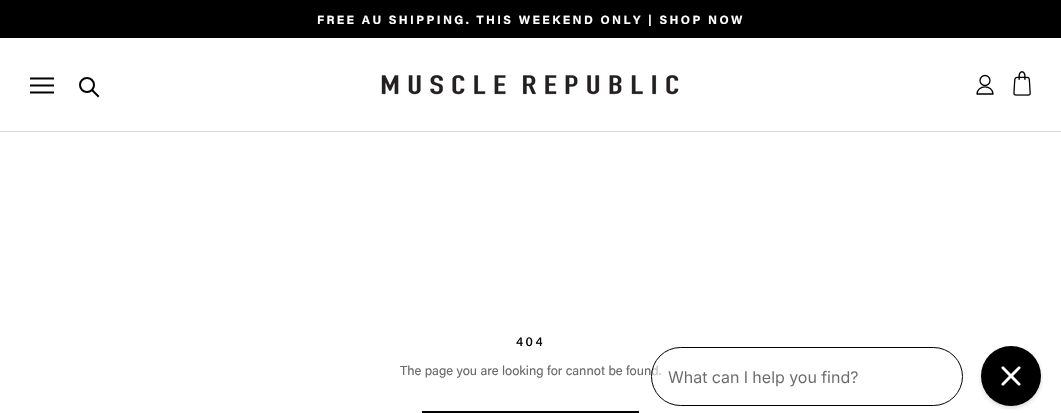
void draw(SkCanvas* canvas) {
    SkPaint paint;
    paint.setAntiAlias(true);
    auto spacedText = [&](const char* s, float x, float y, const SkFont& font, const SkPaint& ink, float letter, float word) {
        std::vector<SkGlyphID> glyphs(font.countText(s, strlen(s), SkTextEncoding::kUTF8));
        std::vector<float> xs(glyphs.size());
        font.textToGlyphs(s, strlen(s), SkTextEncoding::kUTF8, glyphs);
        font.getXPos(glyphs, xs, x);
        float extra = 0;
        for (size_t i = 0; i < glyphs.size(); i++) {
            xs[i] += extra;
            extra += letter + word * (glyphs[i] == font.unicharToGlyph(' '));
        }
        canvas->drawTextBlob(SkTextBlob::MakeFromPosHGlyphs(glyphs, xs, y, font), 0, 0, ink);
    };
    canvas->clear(0xFFFFFFFF);
    paint.setColor(0xFF000000);
    canvas->drawRect(SkRect::MakeXYWH(0, 0, 1061, 38), paint);
    canvas->save();
    canvas->clipRect(SkRect::MakeXYWH(15, 12, 1031, 14));
    SkFont font1(fontMgr->matchFamilyStyle("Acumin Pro", SkFontStyle::Bold()), 12);
    font1.setSubpixel(true);
    paint.setColor(0xFFFFFFFF);
    spacedText("FREE AU SHIPPING. THIS WEEKEND ONLY | SHOP NOW", 317, 24, font1, paint, 2.4f, 0);
    canvas->restore();
    paint.setColor(0xFFD9D9D9);
    canvas->drawRect(SkRect::MakeXYWH(0, 131, 1061, 1), paint);
    canvas->drawImageRect(SkImages::DeferredFromEncodedData(SkData::MakeFromFileName("img1.png")), SkRect::MakeXYWH(30, 77, 24, 17), SkSamplingOptions());
    paint.setStyle(SkPaint::kStroke_Style);
    paint.setStrokeWidth(2);
    paint.setStrokeCap(SkPaint::kSquare_Cap);
    paint.setColor(0xFF000000);
    canvas->drawPath(SkPathBuilder().moveTo(98, 96).lineTo(92.5f, 90.5f).detach(), paint);
    paint.setStrokeCap(SkPaint::kButt_Cap);
    canvas->drawCircle(87, 85, 7, paint);
    canvas->drawImageRect(SkImages::DeferredFromEncodedData(SkData::MakeFromFileName("img2.png")), SkRect::MakeXYWH(381, 75, 298, 20), SkSamplingOptions());
    paint.setStrokeWidth(1.3f);
    canvas->drawCircle(985, 80.5f, 5, paint);
    paint.setStrokeCap(SkPaint::kRound_Cap);
    paint.setStrokeJoin(SkPaint::kRound_Join);
    canvas->drawPath(SkPathBuilder().moveTo(993, 94).cubicTo(993, 84.5f, 977, 84.5f, 977, 94).close().detach(), paint);
    canvas->drawImageRect(SkImages::DeferredFromEncodedData(SkData::MakeFromFileName("img3.png")), SkRect::MakeXYWH(1013, 71, 18, 25), SkSamplingOptions());
    SkFont font2(fontMgr->matchFamilyStyle("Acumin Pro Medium", SkFontStyle(500, SkFontStyle::kNormal_Width, SkFontStyle::kUpright_Slant)), 13);
    font2.setSubpixel(true);
    paint.setStyle(SkPaint::kFill_Style);
    spacedText("404", 516, 346, font2, paint, 2.5f, 0);
    SkFont font3(fontMgr->matchFamilyStyle("Acumin Pro", SkFontStyle::Normal()), 13);
    font3.setSubpixel(true);
    paint.setColor(0xFF6A6A6A);
    canvas->drawString("The page you are looking for cannot be found.", 400, 375, font3, paint);
    paint.setStyle(SkPaint::kStroke_Style);
    paint.setStrokeWidth(1);
    paint.setStrokeCap(SkPaint::kButt_Cap);
    paint.setStrokeJoin(SkPaint::kMiter_Join);
    paint.setColor(0xFF000000);
    canvas->drawRect(SkRect::MakeXYWH(422.5f, 411.5f, 216, 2), paint);
    paint.setStyle(SkPaint::kFill_Style);
    canvas->drawRect(SkRect::MakeXYWH(423, 412, 215, 1), paint);
    canvas->drawImageRect(SkImages::DeferredFromEncodedData(SkData::MakeFromFileName("img4.png")), SkRect::MakeXYWH(651, 346, 392, 64), SkSamplingOptions());
}
